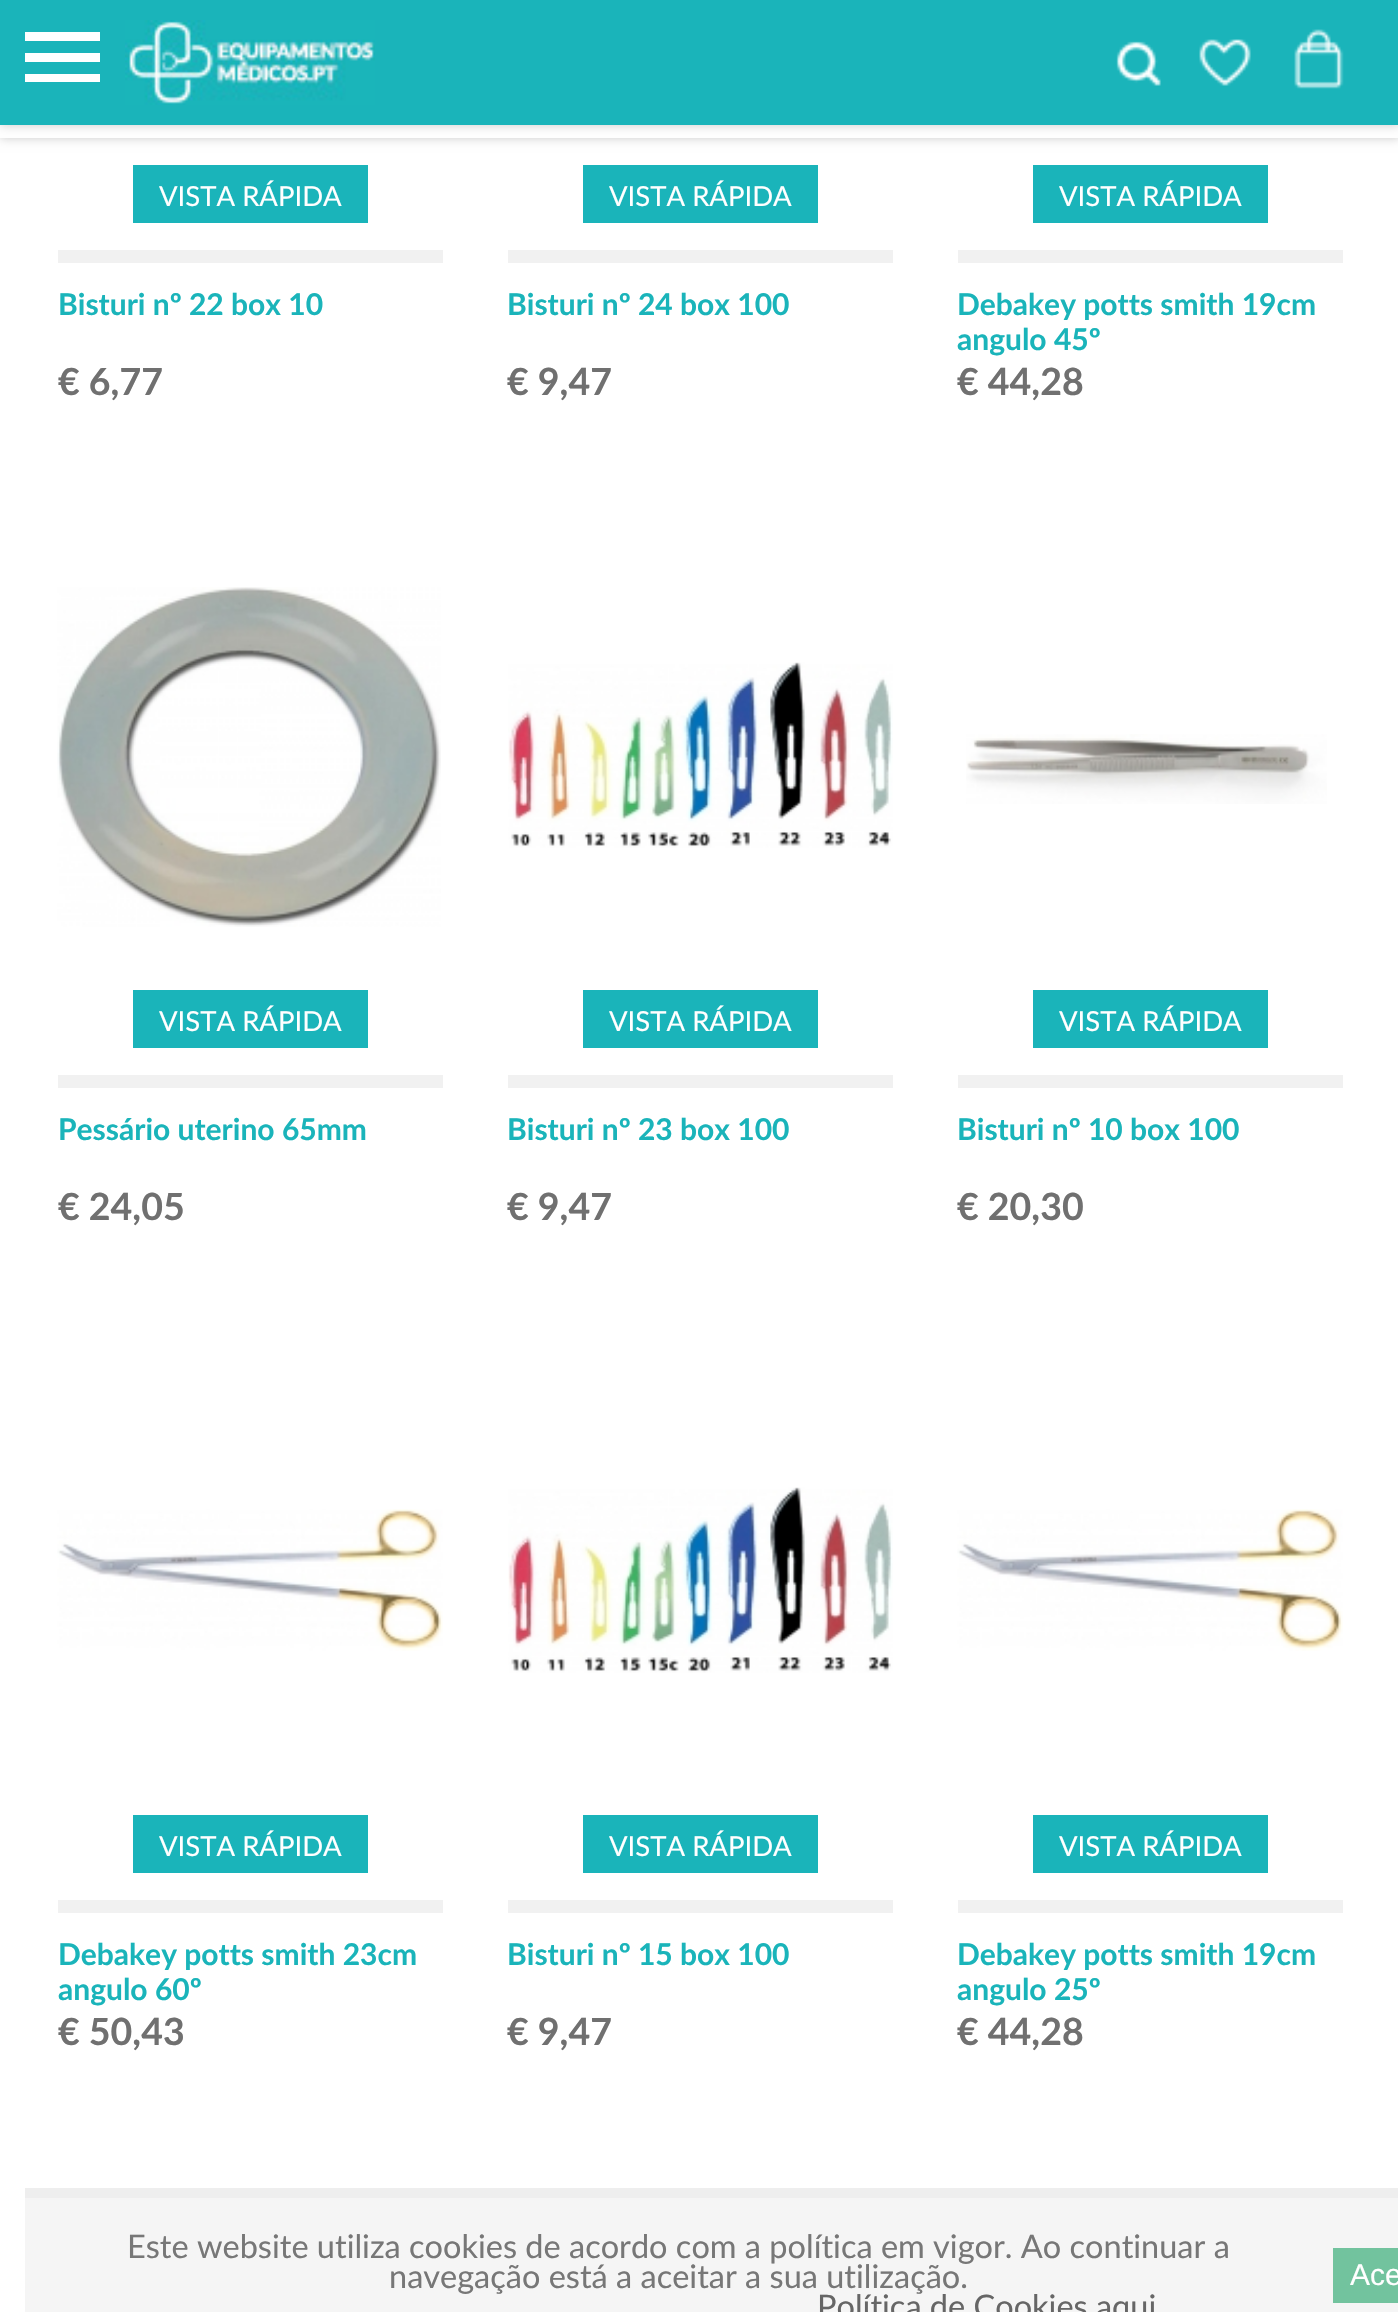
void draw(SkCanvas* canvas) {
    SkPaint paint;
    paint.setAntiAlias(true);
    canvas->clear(0xFFFFFFFF);
    paint.setColor(0x33000000);
    paint.setMaskFilter(SkMaskFilter::MakeBlur(kNormal_SkBlurStyle, 5));
    canvas->drawRect(SkRect::MakeXYWH(0, 0, 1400, 138), paint);
    paint.setMaskFilter(nullptr);
    paint.setColor(0xFFFFFFFF);
    canvas->drawRect(SkRect::MakeXYWH(0, 125, 1398, 13), paint);
    paint.setColor(0x33000000);
    paint.setMaskFilter(SkMaskFilter::MakeBlur(kNormal_SkBlurStyle, 5));
    canvas->drawRect(SkRect::MakeXYWH(0, 0, 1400, 125), paint);
    paint.setMaskFilter(nullptr);
    paint.setColor(0xFF1AB4BA);
    canvas->drawRect(SkRect::MakeXYWH(0, 0, 1398, 125), paint);
    paint.setColor(0xFFFFFFFF);
    canvas->drawPath(SkPathBuilder().moveTo(25, 82).lineTo(100, 82).lineTo(100, 74).lineTo(25, 74).close().moveTo(25, 62).lineTo(100, 62).lineTo(100, 53).lineTo(25, 53).close().moveTo(25, 32).lineTo(25, 41).lineTo(100, 41).lineTo(100, 32).close().detach(), paint);
    canvas->drawImageRect(SkImages::DeferredFromEncodedData(SkData::MakeFromFileName("img1.png")), SkRect::MakeXYWH(125, 20, 250, 85), SkSamplingOptions());
    canvas->drawImageRect(SkImages::DeferredFromEncodedData(SkData::MakeFromFileName("img2.png")), SkRect::MakeXYWH(1116, 41, 45, 45), SkSamplingOptions());
    canvas->drawImageRect(SkImages::DeferredFromEncodedData(SkData::MakeFromFileName("img3.png")), SkRect::MakeXYWH(1199, 39, 52, 47), SkSamplingOptions());
    canvas->drawImageRect(SkImages::DeferredFromEncodedData(SkData::MakeFromFileName("img4.png")), SkRect::MakeXYWH(1294, 29, 50, 60), SkSamplingOptions());
    paint.setColor(0xFF1AB4BA);
    canvas->drawRect(SkRect::MakeXYWH(133, 165, 235, 58), paint);
    SkFont font1(fontMgr->matchFamilyStyle("Lato", SkFontStyle::Normal()), 27.5f);
    font1.setSubpixel(true);
    paint.setColor(0xFFFFFFFF);
    canvas->drawString("VISTA RÁPIDA", 159, 206, font1, paint);
    paint.setColor(0xFFF1F1F1);
    canvas->drawRect(SkRect::MakeXYWH(58, 250, 385, 13), paint);
    SkFont font2(fontMgr->matchFamilyStyle("Lato", SkFontStyle::Bold()), 30);
    font2.setSubpixel(true);
    paint.setColor(0xFF1AB4BA);
    canvas->drawString("Bisturi nº 22 box 10", 58, 315, font2, paint);
    SkFont font3(fontMgr->matchFamilyStyle("Lato", SkFontStyle::Bold()), 37.5f);
    font3.setSubpixel(true);
    paint.setColor(0xFF707070);
    canvas->drawString("€ 6,77", 58, 395, font3, paint);
    paint.setColor(0xFF1AB4BA);
    canvas->drawRect(SkRect::MakeXYWH(583, 165, 235, 58), paint);
    paint.setColor(0xFFFFFFFF);
    canvas->drawString("VISTA RÁPIDA", 609, 206, font1, paint);
    paint.setColor(0xFFF1F1F1);
    canvas->drawRect(SkRect::MakeXYWH(508, 250, 385, 13), paint);
    paint.setColor(0xFF1AB4BA);
    canvas->drawString("Bisturi nº 24 box 100", 507, 315, font2, paint);
    paint.setColor(0xFF707070);
    canvas->drawString("€ 9,47", 507, 395, font3, paint);
    paint.setColor(0xFF1AB4BA);
    canvas->drawRect(SkRect::MakeXYWH(1033, 165, 235, 58), paint);
    paint.setColor(0xFFFFFFFF);
    canvas->drawString("VISTA RÁPIDA", 1059, 206, font1, paint);
    paint.setColor(0xFFF1F1F1);
    canvas->drawRect(SkRect::MakeXYWH(958, 250, 385, 13), paint);
    paint.setColor(0xFF1AB4BA);
    canvas->drawString("Debakey potts smith 19cm", 957, 315, font2, paint);
    canvas->drawString("angulo 45º", 957, 350, font2, paint);
    paint.setColor(0xFF707070);
    canvas->drawString("€ 44,28", 957, 395, font3, paint);
    canvas->drawImageRect(SkImages::DeferredFromEncodedData(SkData::MakeFromFileName("img5.png")), SkRect::MakeXYWH(57, 587, 384, 340), SkSamplingOptions());
    paint.setColor(0xFF1AB4BA);
    canvas->drawRect(SkRect::MakeXYWH(133, 990, 235, 58), paint);
    paint.setColor(0xFFFFFFFF);
    canvas->drawString("VISTA RÁPIDA", 159, 1031, font1, paint);
    paint.setColor(0xFFF1F1F1);
    canvas->drawRect(SkRect::MakeXYWH(58, 1075, 385, 13), paint);
    paint.setColor(0xFF1AB4BA);
    canvas->drawString("Pessário uterino 65mm", 58, 1140, font2, paint);
    paint.setColor(0xFF707070);
    canvas->drawString("€ 24,05", 58, 1220, font3, paint);
    canvas->drawImageRect(SkImages::DeferredFromEncodedData(SkData::MakeFromFileName("img6.png")), SkRect::MakeXYWH(508, 662, 385, 186), SkSamplingOptions());
    paint.setColor(0xFF1AB4BA);
    canvas->drawRect(SkRect::MakeXYWH(583, 990, 235, 58), paint);
    paint.setColor(0xFFFFFFFF);
    canvas->drawString("VISTA RÁPIDA", 609, 1031, font1, paint);
    paint.setColor(0xFFF1F1F1);
    canvas->drawRect(SkRect::MakeXYWH(508, 1075, 385, 13), paint);
    paint.setColor(0xFF1AB4BA);
    canvas->drawString("Bisturi nº 23 box 100", 507, 1140, font2, paint);
    paint.setColor(0xFF707070);
    canvas->drawString("€ 9,47", 507, 1220, font3, paint);
    canvas->drawImageRect(SkImages::DeferredFromEncodedData(SkData::MakeFromFileName("img7.png")), SkRect::MakeXYWH(966, 734, 361, 70), SkSamplingOptions());
    paint.setColor(0xFF1AB4BA);
    canvas->drawRect(SkRect::MakeXYWH(1033, 990, 235, 58), paint);
    paint.setColor(0xFFFFFFFF);
    canvas->drawString("VISTA RÁPIDA", 1059, 1031, font1, paint);
    paint.setColor(0xFFF1F1F1);
    canvas->drawRect(SkRect::MakeXYWH(958, 1075, 385, 13), paint);
    paint.setColor(0xFF1AB4BA);
    canvas->drawString("Bisturi nº 10 box 100", 957, 1140, font2, paint);
    paint.setColor(0xFF707070);
    canvas->drawString("€ 20,30", 957, 1220, font3, paint);
    canvas->drawImageRect(SkImages::DeferredFromEncodedData(SkData::MakeFromFileName("img8.png")), SkRect::MakeXYWH(57, 1509, 386, 142), SkSamplingOptions());
    paint.setColor(0xFF1AB4BA);
    canvas->drawRect(SkRect::MakeXYWH(133, 1815, 235, 58), paint);
    paint.setColor(0xFFFFFFFF);
    canvas->drawString("VISTA RÁPIDA", 159, 1856, font1, paint);
    paint.setColor(0xFFF1F1F1);
    canvas->drawRect(SkRect::MakeXYWH(58, 1900, 385, 13), paint);
    paint.setColor(0xFF1AB4BA);
    canvas->drawString("Debakey potts smith 23cm", 58, 1965, font2, paint);
    canvas->drawString("angulo 60º", 58, 2000, font2, paint);
    paint.setColor(0xFF707070);
    canvas->drawString("€ 50,43", 58, 2045, font3, paint);
    canvas->drawImageRect(SkImages::DeferredFromEncodedData(SkData::MakeFromFileName("img6.png")), SkRect::MakeXYWH(508, 1487, 385, 186), SkSamplingOptions());
    paint.setColor(0xFF1AB4BA);
    canvas->drawRect(SkRect::MakeXYWH(583, 1815, 235, 58), paint);
    paint.setColor(0xFFFFFFFF);
    canvas->drawString("VISTA RÁPIDA", 609, 1856, font1, paint);
    paint.setColor(0xFFF1F1F1);
    canvas->drawRect(SkRect::MakeXYWH(508, 1900, 385, 13), paint);
    paint.setColor(0xFF1AB4BA);
    canvas->drawString("Bisturi nº 15 box 100", 507, 1965, font2, paint);
    paint.setColor(0xFF707070);
    canvas->drawString("€ 9,47", 507, 2045, font3, paint);
    canvas->drawImageRect(SkImages::DeferredFromEncodedData(SkData::MakeFromFileName("img8.png")), SkRect::MakeXYWH(957, 1509, 386, 142), SkSamplingOptions());
    paint.setColor(0xFF1AB4BA);
    canvas->drawRect(SkRect::MakeXYWH(1033, 1815, 235, 58), paint);
    paint.setColor(0xFFFFFFFF);
    canvas->drawString("VISTA RÁPIDA", 1059, 1856, font1, paint);
    paint.setColor(0xFFF1F1F1);
    canvas->drawRect(SkRect::MakeXYWH(958, 1900, 385, 13), paint);
    paint.setColor(0xFF1AB4BA);
    canvas->drawString("Debakey potts smith 19cm", 957, 1965, font2, paint);
    canvas->drawString("angulo 25º", 957, 2000, font2, paint);
    paint.setColor(0xFF707070);
    canvas->drawString("€ 44,28", 957, 2045, font3, paint);
    paint.setColor(0xFFF5F5F5);
    canvas->drawRect(SkRect::MakeXYWH(25, 2198, 1373, 114), paint);
    paint.setColor(0xFFEEEEEE);
    canvas->drawRect(SkRect::MakeXYWH(25, 2188, 1373, 10), paint);
    SkFont font4(fontMgr->matchFamilyStyle("Lato", SkFontStyle::Normal()), 32.5f);
    font4.setSubpixel(true);
    paint.setColor(0xFF777777);
    canvas->drawString("Este website utiliza cookies de acordo com a política em vigor. Ao continuar a", 127, 2258, font4, paint);
    canvas->drawString("navegação está a aceitar a sua utilização.", 389, 2288, font4, paint);
    paint.setColor(0xFF666666);
    canvas->drawString("Política de Cookies aqui", 817, 2318, font4, paint);
    paint.setColor(0xFF72C39E);
    canvas->drawRect(SkRect::MakeXYWH(1333, 2248, 65, 55), paint);
    SkFont font5(fontMgr->matchFamilyStyle("Liberation Sans", SkFontStyle::Normal()), 30);
    font5.setSubpixel(true);
    paint.setColor(0xFFFFFFFF);
    canvas->drawString("Ace", 1350, 2285, font5, paint);
}
